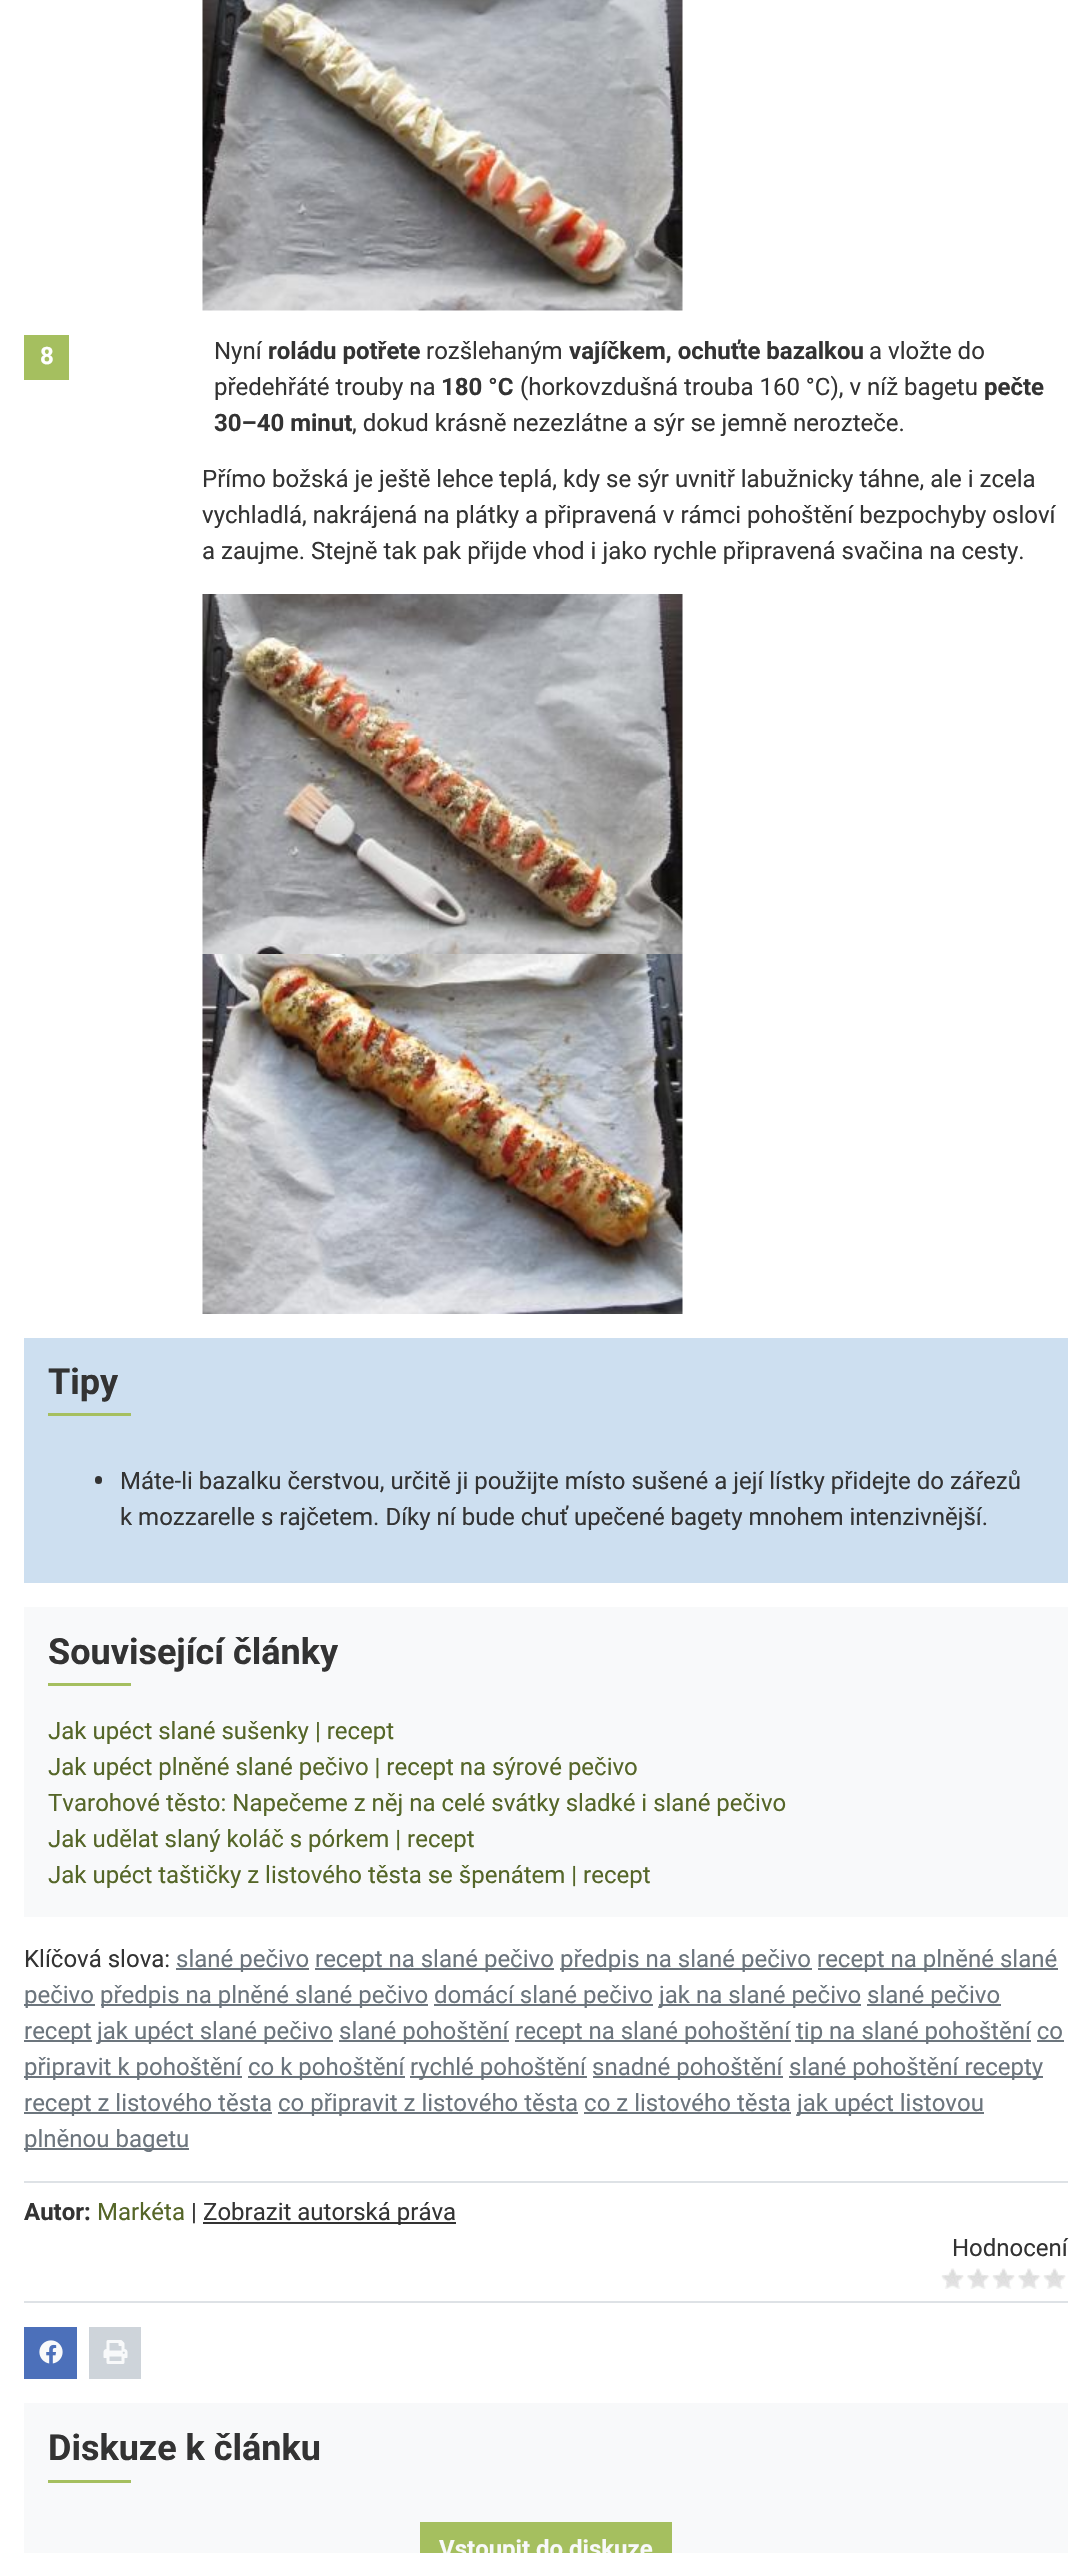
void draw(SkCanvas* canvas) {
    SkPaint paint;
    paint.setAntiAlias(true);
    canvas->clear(0xFFFFFFFF);
    canvas->drawImageRect(SkImages::DeferredFromEncodedData(SkData::MakeFromFileName("img1.png")), SkRect::MakeXYWH(202, 0, 481, 311), SkSamplingOptions());
    paint.setColor(0xFFA5BF5F);
    canvas->drawRect(SkRect::MakeXYWH(24, 335, 45, 45), paint);
    SkFont font1(fontMgr->matchFamilyStyle("Roboto", SkFontStyle::Bold()), 24);
    font1.setSubpixel(true);
    paint.setColor(0xFFFFFFFF);
    canvas->drawString("8", 40, 364, font1, paint);
    SkFont font2(fontMgr->matchFamilyStyle("Roboto", SkFontStyle::Normal()), 24);
    font2.setSubpixel(true);
    paint.setColor(0xFF333333);
    canvas->drawString("Nyní", 214, 359, font2, paint);
    canvas->drawString("roládu potřete", 268, 359, font1, paint);
    canvas->drawString("rozšlehaným", 426, 359, font2, paint);
    canvas->drawString("vajíčkem, ochuťte bazalkou", 569, 359, font1, paint);
    canvas->drawString("a vložte do", 869, 359, font2, paint);
    canvas->drawString("předehřáté trouby na", 214, 395, font2, paint);
    canvas->drawString("180 °C", 441, 395, font1, paint);
    canvas->drawString("(horkovzdušná trouba 160 °C), v níž bagetu", 520, 395, font2, paint);
    canvas->drawString("pečte", 984, 395, font1, paint);
    canvas->drawString("30–40 minut", 214, 431, font1, paint);
    canvas->drawString(", dokud krásně nezezlátne a sýr se jemně nerozteče.", 352, 431, font2, paint);
    canvas->drawString("Přímo božská je ještě lehce teplá, kdy se sýr uvnitř labužnicky táhne, ale i zcela", 202, 487, font2, paint);
    canvas->drawString("vychladlá, nakrájená na plátky a připravená v rámci pohoštění bezpochyby osloví", 202, 523, font2, paint);
    canvas->drawString("a zaujme. Stejně tak pak přijde vhod i jako rychle připravená svačina na cesty.", 202, 559, font2, paint);
    canvas->drawImageRect(SkImages::DeferredFromEncodedData(SkData::MakeFromFileName("img2.png")), SkRect::MakeXYWH(202, 594, 481, 360), SkSamplingOptions());
    canvas->drawImageRect(SkImages::DeferredFromEncodedData(SkData::MakeFromFileName("img3.png")), SkRect::MakeXYWH(202, 954, 481, 360), SkSamplingOptions());
    paint.setColor(0xFFCDDFF0);
    canvas->drawRect(SkRect::MakeXYWH(24, 1338, 1044, 245), paint);
    SkFont font3(fontMgr->matchFamilyStyle("Roboto", SkFontStyle::Bold()), 36);
    font3.setSubpixel(true);
    paint.setColor(0xFF333333);
    canvas->drawString("Tipy", 48, 1394, font3, paint);
    paint.setColor(0xFFA5BF5F);
    canvas->drawRect(SkRect::MakeXYWH(48, 1413, 83, 3), paint);
    paint.setColor(0xFF333333);
    canvas->drawRoundRect(SkRect::MakeXYWH(95, 1476, 7, 8), 3.5f, 3.5f, paint);
    canvas->drawString("Máte-li bazalku čerstvou, určitě ji použijte místo sušené a její lístky přidejte do zářezů", 120, 1489, font2, paint);
    canvas->drawString("k mozzarelle s rajčetem. Díky ní bude chuť upečené bagety mnohem intenzivnější.", 120, 1525, font2, paint);
    paint.setColor(0xFFF8F9FA);
    canvas->drawRect(SkRect::MakeXYWH(24, 1607, 1044, 310), paint);
    paint.setColor(0xFF333333);
    canvas->drawString("Související články", 48, 1664, font3, paint);
    paint.setColor(0xFFA5BF5F);
    canvas->drawRect(SkRect::MakeXYWH(48, 1683, 83, 3), paint);
    paint.setColor(0xFF556628);
    canvas->drawString("Jak upéct slané sušenky | recept", 48, 1739, font2, paint);
    canvas->drawString("Jak upéct plněné slané pečivo | recept na sýrové pečivo", 48, 1775, font2, paint);
    canvas->drawString("Tvarohové těsto: Napečeme z něj na celé svátky sladké i slané pečivo", 48, 1811, font2, paint);
    canvas->drawString("Jak udělat slaný koláč s pórkem | recept", 48, 1847, font2, paint);
    canvas->drawString("Jak upéct taštičky z listového těsta se špenátem | recept", 48, 1883, font2, paint);
    paint.setColor(0xFF333333);
    canvas->drawString("Klíčová slova:", 24, 1967, font2, paint);
    paint.setColor(0xFF6C757D);
    canvas->drawRect(SkRect::MakeXYWH(176, 1968, 133, 2), paint);
    canvas->drawString("slané pečivo", 176, 1967, font2, paint);
    canvas->drawRect(SkRect::MakeXYWH(315, 1968, 239, 2), paint);
    canvas->drawString("recept na slané pečivo", 315, 1967, font2, paint);
    canvas->drawRect(SkRect::MakeXYWH(560, 1968, 252, 2), paint);
    canvas->drawString("předpis na slané pečivo", 560, 1967, font2, paint);
    canvas->drawRect(SkRect::MakeXYWH(818, 1968, 240, 2), paint);
    canvas->drawString("recept na plněné slané", 817, 1967, font2, paint);
    canvas->drawRect(SkRect::MakeXYWH(24, 2004, 71, 2), paint);
    canvas->drawString("pečivo", 24, 2003, font2, paint);
    canvas->drawRect(SkRect::MakeXYWH(101, 2004, 327, 2), paint);
    canvas->drawString("předpis na plněné slané pečivo", 100, 2003, font2, paint);
    canvas->drawRect(SkRect::MakeXYWH(434, 2004, 219, 2), paint);
    canvas->drawString("domácí slané pečivo", 434, 2003, font2, paint);
    canvas->drawRect(SkRect::MakeXYWH(659, 2004, 202, 2), paint);
    canvas->drawString("jak na slané pečivo", 659, 2003, font2, paint);
    canvas->drawRect(SkRect::MakeXYWH(867, 2004, 134, 2), paint);
    canvas->drawString("slané pečivo", 867, 2003, font2, paint);
    canvas->drawRect(SkRect::MakeXYWH(24, 2040, 68, 2), paint);
    canvas->drawString("recept", 24, 2039, font2, paint);
    canvas->drawRect(SkRect::MakeXYWH(98, 2040, 235, 2), paint);
    canvas->drawString("jak upéct slané pečivo", 97, 2039, font2, paint);
    canvas->drawRect(SkRect::MakeXYWH(339, 2040, 170, 2), paint);
    canvas->drawString("slané pohoštění", 339, 2039, font2, paint);
    canvas->drawRect(SkRect::MakeXYWH(515, 2040, 276, 2), paint);
    canvas->drawString("recept na slané pohoštění", 515, 2039, font2, paint);
    canvas->drawRect(SkRect::MakeXYWH(795, 2040, 236, 2), paint);
    canvas->drawString("tip na slané pohoštění co", 796, 2039, font2, paint);
    canvas->drawRect(SkRect::MakeXYWH(24, 2076, 218, 2), paint);
    canvas->drawString("připravit k pohoštění", 24, 2075, font2, paint);
    canvas->drawRect(SkRect::MakeXYWH(1037, 2040, 27, 2), paint);
    canvas->drawRect(SkRect::MakeXYWH(248, 2076, 157, 2), paint);
    canvas->drawString("co k pohoštění", 248, 2075, font2, paint);
    canvas->drawRect(SkRect::MakeXYWH(410, 2076, 177, 2), paint);
    canvas->drawString("rychlé pohoštění", 410, 2075, font2, paint);
    canvas->drawRect(SkRect::MakeXYWH(593, 2076, 190, 2), paint);
    canvas->drawString("snadné pohoštění", 592, 2075, font2, paint);
    canvas->drawRect(SkRect::MakeXYWH(789, 2076, 254, 2), paint);
    canvas->drawString("slané pohoštění recepty", 789, 2075, font2, paint);
    canvas->drawRect(SkRect::MakeXYWH(24, 2112, 248, 2), paint);
    canvas->drawString("recept z listového těsta", 24, 2111, font2, paint);
    canvas->drawRect(SkRect::MakeXYWH(278, 2112, 300, 2), paint);
    canvas->drawString("co připravit z listového těsta co z listového těsta", 278, 2111, font2, paint);
    canvas->drawRect(SkRect::MakeXYWH(797, 2112, 187, 2), paint);
    canvas->drawString("jak upéct listovou", 797, 2111, font2, paint);
    canvas->drawRect(SkRect::MakeXYWH(584, 2112, 207, 2), paint);
    canvas->drawRect(SkRect::MakeXYWH(24, 2148, 165, 2), paint);
    canvas->drawString("plněnou bagetu", 24, 2147, font2, paint);
    paint.setColor(0xFFDEE2E6);
    canvas->drawRect(SkRect::MakeXYWH(24, 2181, 1044, 2), paint);
    canvas->drawRect(SkRect::MakeXYWH(24, 2301, 1044, 2), paint);
    paint.setColor(0xFF333333);
    canvas->drawString("Autor:", 24, 2220, font1, paint);
    paint.setColor(0xFF556628);
    canvas->drawString("Markéta", 97, 2220, font2, paint);
    paint.setColor(0xFF333333);
    canvas->drawString("|", 191, 2220, font2, paint);
    canvas->drawRect(SkRect::MakeXYWH(203, 2222, 253, 2), paint);
    canvas->drawString("Zobrazit autorská práva", 203, 2220, font2, paint);
    canvas->drawString("Hodnocení", 952, 2256, font2, paint);
    canvas->drawImageRect(SkImages::DeferredFromEncodedData(SkData::MakeFromFileName("img4.png")), SkRect::MakeXYWH(941, 2268, 23, 21), SkSamplingOptions());
    canvas->drawImageRect(SkImages::DeferredFromEncodedData(SkData::MakeFromFileName("img5.png")), SkRect::MakeXYWH(942, 2270, 21, 14), SkSamplingOptions());
    canvas->drawImageRect(SkImages::DeferredFromEncodedData(SkData::MakeFromFileName("img6.png")), SkRect::MakeXYWH(967, 2268, 23, 21), SkSamplingOptions());
    canvas->drawImageRect(SkImages::DeferredFromEncodedData(SkData::MakeFromFileName("img7.png")), SkRect::MakeXYWH(968, 2269, 20, 7), SkSamplingOptions());
    canvas->drawImageRect(SkImages::DeferredFromEncodedData(SkData::MakeFromFileName("img4.png")), SkRect::MakeXYWH(992, 2268, 23, 21), SkSamplingOptions());
    canvas->drawImageRect(SkImages::DeferredFromEncodedData(SkData::MakeFromFileName("img5.png")), SkRect::MakeXYWH(993, 2270, 21, 14), SkSamplingOptions());
    canvas->drawImageRect(SkImages::DeferredFromEncodedData(SkData::MakeFromFileName("img6.png")), SkRect::MakeXYWH(1018, 2268, 23, 21), SkSamplingOptions());
    canvas->drawImageRect(SkImages::DeferredFromEncodedData(SkData::MakeFromFileName("img7.png")), SkRect::MakeXYWH(1019, 2269, 20, 7), SkSamplingOptions());
    canvas->drawImageRect(SkImages::DeferredFromEncodedData(SkData::MakeFromFileName("img8.png")), SkRect::MakeXYWH(1043, 2268, 23, 21), SkSamplingOptions());
    canvas->drawImageRect(SkImages::DeferredFromEncodedData(SkData::MakeFromFileName("img9.png")), SkRect::MakeXYWH(1044, 2270, 21, 14), SkSamplingOptions());
    paint.setColor(0xFF4C70BA);
    canvas->drawRect(SkRect::MakeXYWH(24, 2327, 53, 52), paint);
    canvas->drawImageRect(SkImages::DeferredFromEncodedData(SkData::MakeFromFileName("img10.png")), SkRect::MakeXYWH(39, 2340, 24, 24), SkSamplingOptions());
    paint.setColor(0xFFCED4DA);
    canvas->drawRect(SkRect::MakeXYWH(89, 2327, 52, 52), paint);
    canvas->drawImageRect(SkImages::DeferredFromEncodedData(SkData::MakeFromFileName("img11.png")), SkRect::MakeXYWH(103, 2340, 25, 24), SkSamplingOptions());
    paint.setColor(0xFFF8F9FA);
    canvas->drawRect(SkRect::MakeXYWH(24, 2403, 1044, 150), paint);
    paint.setColor(0xFF333333);
    canvas->drawString("Diskuze k článku", 48, 2460, font3, paint);
    paint.setColor(0xFFA5BF5F);
    canvas->drawRect(SkRect::MakeXYWH(48, 2480, 83, 3), paint);
    canvas->drawRect(SkRect::MakeXYWH(420, 2522, 252, 31), paint);
    paint.setColor(0xFFF8F9FA);
    canvas->drawString("Vstoupit do diskuze", 439, 2557, font1, paint);
}
